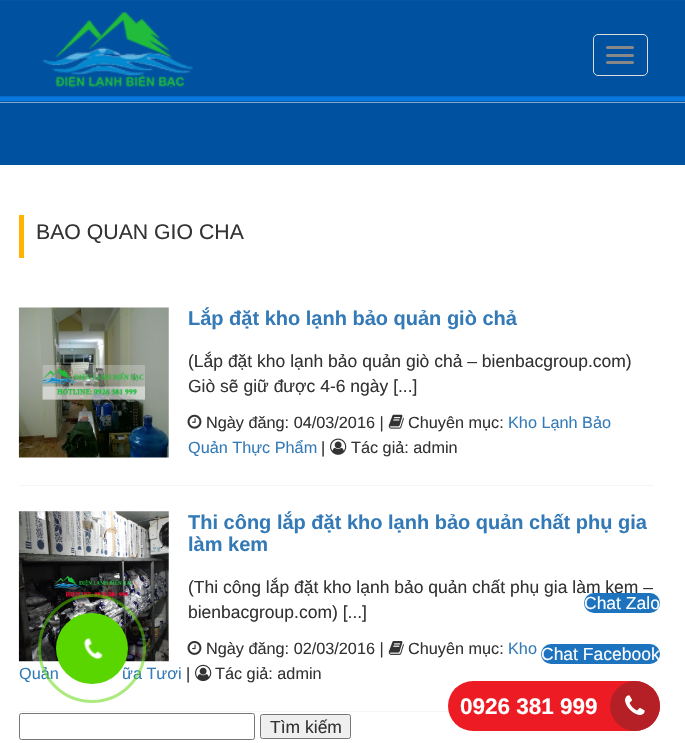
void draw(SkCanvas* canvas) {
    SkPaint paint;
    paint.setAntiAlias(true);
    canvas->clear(0xFFFFFFFF);
    canvas->drawImageRect(SkImages::DeferredFromEncodedData(SkData::MakeFromFileName("img1.png")), SkRect::MakeXYWH(0, 0, 685, 103), SkSamplingOptions());
    canvas->drawImageRect(SkImages::DeferredFromEncodedData(SkData::MakeFromFileName("img2.png")), SkRect::MakeXYWH(42, 12, 151, 76), SkSamplingOptions());
    paint.setColor(0xFF0052A0);
    canvas->drawRect(SkRect::MakeXYWH(0, 103, 685, 62), paint);
    paint.setStyle(SkPaint::kStroke_Style);
    paint.setStrokeWidth(1);
    paint.setColor(0xFFDDDDDD);
    canvas->drawRoundRect(SkRect::MakeXYWH(593.5f, 34.5f, 54, 41), 4.5f, 4.5f, paint);
    paint.setStyle(SkPaint::kFill_Style);
    paint.setColor(0xFF888888);
    canvas->drawRoundRect(SkRect::MakeXYWH(606, 46, 28, 3), 1.5f, 1.5f, paint);
    canvas->drawRoundRect(SkRect::MakeXYWH(606, 54, 28, 3), 1.5f, 1.5f, paint);
    canvas->drawRoundRect(SkRect::MakeXYWH(606, 61, 28, 3), 1.5f, 1.5f, paint);
    paint.setColor(0xFFFFB400);
    canvas->drawRect(SkRect::MakeXYWH(19, 215, 5, 43), paint);
    SkFont font1(fontMgr->matchFamilyStyle("Liberation Sans", SkFontStyle::Normal()), 21.25f);
    font1.setSubpixel(true);
    paint.setColor(0xFF333333);
    canvas->drawString("BAO QUAN GIO CHA", 36, 239, font1, paint);
    paint.setColor(0xFFF5F5F5);
    canvas->drawRect(SkRect::MakeXYWH(19, 485, 635, 1), paint);
    canvas->drawImageRect(SkImages::DeferredFromEncodedData(SkData::MakeFromFileName("img3.png")), SkRect::MakeXYWH(18, 307, 151, 151), SkSamplingOptions());
    SkFont font2(fontMgr->matchFamilyStyle("Liberation Sans", SkFontStyle::Bold()), 20);
    font2.setSubpixel(true);
    paint.setColor(0xFF337AB7);
    canvas->drawString("Lắp đặt kho lạnh bảo quản giò chả", 188, 325, font2, paint);
    SkFont font3(fontMgr->matchFamilyStyle("Liberation Sans", SkFontStyle::Normal()), 17.5f);
    font3.setSubpixel(true);
    paint.setColor(0xFF333333);
    canvas->drawString("(Lắp đặt kho lạnh bảo quản giò chả – bienbacgroup.com)", 188, 367, font3, paint);
    canvas->drawString("Giò sẽ giữ được 4-6 ngày [...]", 188, 392, font3, paint);
    canvas->drawImageRect(SkImages::DeferredFromEncodedData(SkData::MakeFromFileName("img4.png")), SkRect::MakeXYWH(187, 414, 15, 15), SkSamplingOptions());
    SkFont font4(fontMgr->matchFamilyStyle("Liberation Sans", SkFontStyle::Normal()), 16.25f);
    font4.setSubpixel(true);
    canvas->drawString("Ngày đăng: 04/03/2016 |", 206, 428, font4, paint);
    canvas->drawImageRect(SkImages::DeferredFromEncodedData(SkData::MakeFromFileName("img5.png")), SkRect::MakeXYWH(388, 414, 16, 15), SkSamplingOptions());
    canvas->drawString("Chuyên mục:", 408, 428, font4, paint);
    paint.setColor(0xFF337AB7);
    canvas->drawString("Kho Lạnh Bảo", 508, 428, font4, paint);
    canvas->drawString("Quản Thực Phẩm", 188, 453, font4, paint);
    paint.setColor(0xFF333333);
    canvas->drawString("|", 321, 453, font4, paint);
    canvas->drawImageRect(SkImages::DeferredFromEncodedData(SkData::MakeFromFileName("img6.png")), SkRect::MakeXYWH(330, 438, 17, 17), SkSamplingOptions());
    canvas->drawString("Tác giả: admin", 351, 453, font4, paint);
    paint.setColor(0xFFF5F5F5);
    canvas->drawRect(SkRect::MakeXYWH(19, 711, 430, 1), paint);
    canvas->drawImageRect(SkImages::DeferredFromEncodedData(SkData::MakeFromFileName("img7.png")), SkRect::MakeXYWH(18, 511, 151, 151), SkSamplingOptions());
    paint.setColor(0xFF337AB7);
    canvas->drawString("Thi công lắp đặt kho lạnh bảo quản chất phụ gia", 188, 529, font2, paint);
    canvas->drawString("làm kem", 188, 551, font2, paint);
    paint.setColor(0xFF333333);
    canvas->drawString("(Thi công lắp đặt kho lạnh bảo quản chất phụ gia làm kem –", 188, 593, font3, paint);
    canvas->drawString("bienbacgroup.com) [...]", 188, 618, font3, paint);
    canvas->drawImageRect(SkImages::DeferredFromEncodedData(SkData::MakeFromFileName("img8.png")), SkRect::MakeXYWH(187, 641, 15, 14), SkSamplingOptions());
    canvas->drawString("Ngày đăng: 02/03/2016 |", 206, 654, font4, paint);
    canvas->drawImageRect(SkImages::DeferredFromEncodedData(SkData::MakeFromFileName("img9.png")), SkRect::MakeXYWH(388, 641, 16, 14), SkSamplingOptions());
    canvas->drawString("Chuyên mục:", 408, 654, font4, paint);
    paint.setColor(0xFF337AB7);
    canvas->drawString("Kho", 508, 654, font4, paint);
    canvas->drawString("Quản", 19, 679, font4, paint);
    canvas->drawString("ữa Tươi", 122, 679, font4, paint);
    paint.setColor(0xFF333333);
    canvas->drawString("|", 186, 679, font4, paint);
    canvas->drawImageRect(SkImages::DeferredFromEncodedData(SkData::MakeFromFileName("img10.png")), SkRect::MakeXYWH(195, 664, 17, 18), SkSamplingOptions());
    canvas->drawString("Tác giả: admin", 215, 679, font4, paint);
    paint.setStyle(SkPaint::kStroke_Style);
    paint.setColor(0xFF767676);
    canvas->drawRoundRect(SkRect::MakeXYWH(19.5f, 713.5f, 235, 26), 2, 2, paint);
    paint.setStyle(SkPaint::kFill_Style);
    paint.setColor(0xFFEFEFEF);
    canvas->drawRoundRect(SkRect::MakeXYWH(260.5f, 714.5f, 90, 24), 2, 2, paint);
    paint.setStyle(SkPaint::kStroke_Style);
    paint.setColor(0xFF767676);
    canvas->drawRoundRect(SkRect::MakeXYWH(260.5f, 714.5f, 90, 24), 2, 2, paint);
    paint.setStyle(SkPaint::kFill_Style);
    paint.setColor(0xFF333333);
    canvas->drawString("Tìm kiếm", 270, 733, font3, paint);
    paint.setStyle(SkPaint::kStroke_Style);
    paint.setStrokeWidth(3);
    paint.setColor(0x8059D600);
    canvas->drawRoundRect(SkRect::MakeXYWH(39.5f, 595.5f, 105, 106), 52.5f, 52.5f, paint);
    paint.setStyle(SkPaint::kFill_Style);
    paint.setColor(0xFF59D600);
    canvas->drawRoundRect(SkRect::MakeXYWH(56, 613, 72, 71), 35.5f, 35.5f, paint);
    canvas->drawImageRect(SkImages::DeferredFromEncodedData(SkData::MakeFromFileName("img11.png")), SkRect::MakeXYWH(83, 638, 20, 22), SkSamplingOptions());
    paint.setColor(0xFF1E73BE);
    canvas->drawRoundRect(SkRect::MakeXYWH(584, 593, 76, 20), 10, 10, paint);
    paint.setColor(0xFFFFFFFF);
    canvas->drawString("Chat Zalo", 584, 609, font3, paint);
    paint.setColor(0xFF1E73BE);
    canvas->drawRoundRect(SkRect::MakeXYWH(541, 644, 119, 20), 10, 10, paint);
    paint.setColor(0xFFFFFFFF);
    canvas->drawString("Chat Facebook", 541, 660, font3, paint);
    paint.setColor(0xFFED1C24);
    canvas->drawRoundRect(SkRect::MakeXYWH(448, 681, 212, 50), 25, 25, paint);
    SkFont font5(fontMgr->matchFamilyStyle("Liberation Sans", SkFontStyle::Bold()), 22.5f);
    font5.setSubpixel(true);
    paint.setColor(0xFFFFFFFF);
    canvas->drawString("0926 381 999", 460, 714, font5, paint);
    paint.setColor(0xFFB52026);
    canvas->drawCircle(635, 706, 25, paint);
    canvas->drawImageRect(SkImages::DeferredFromEncodedData(SkData::MakeFromFileName("img12.png")), SkRect::MakeXYWH(625, 695, 20, 20), SkSamplingOptions());
}
